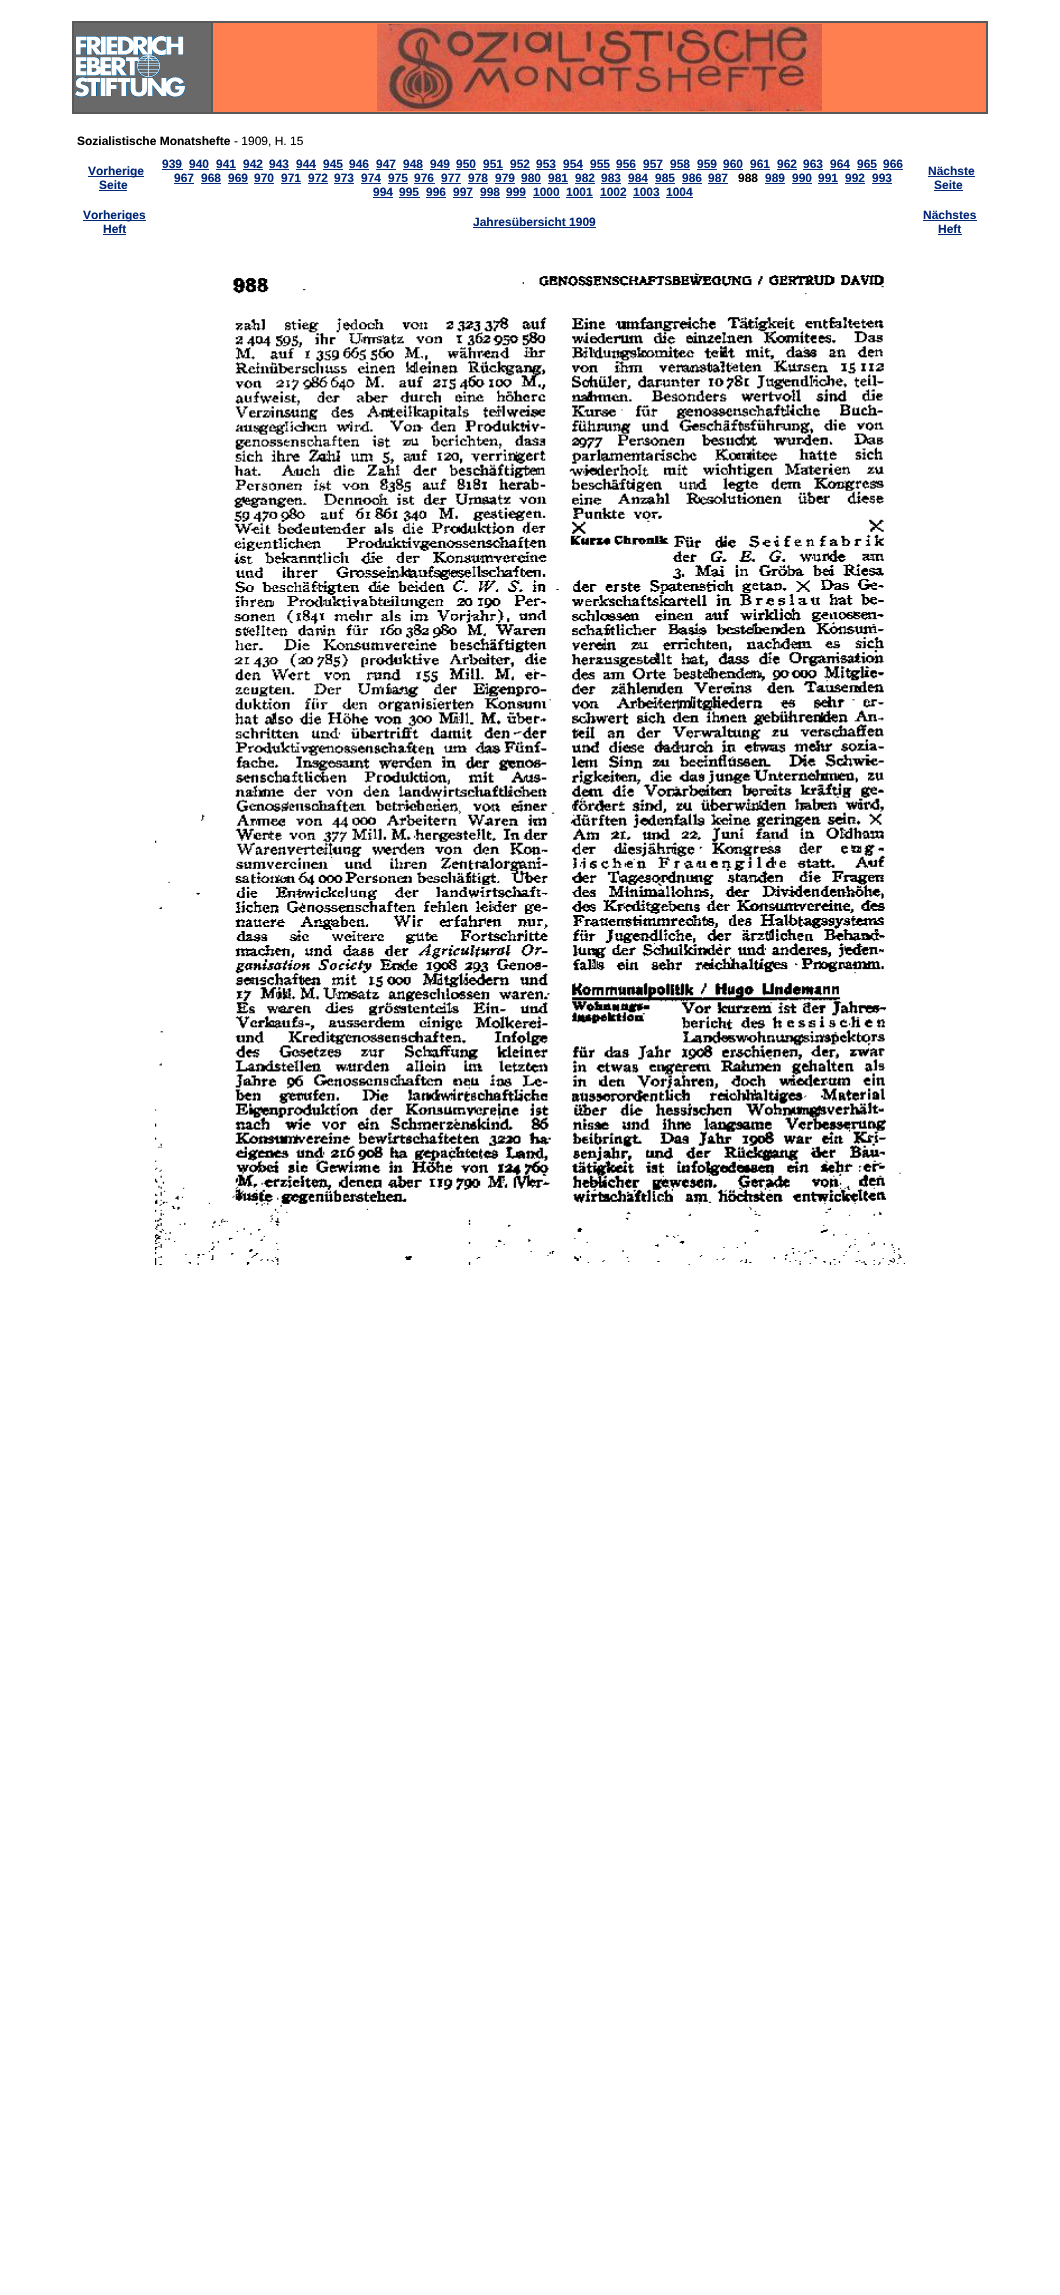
void draw(SkCanvas* canvas) {
    SkPaint paint;
    paint.setAntiAlias(true);
    canvas->clear(0xFFFFFFFF);
    paint.setColor(0xFF595959);
    canvas->drawRect(SkRect::MakeXYWH(72, 21, 916, 93), paint);
    paint.setColor(0xFF696969);
    canvas->drawRect(SkRect::MakeXYWH(74, 23, 137, 89), paint);
    canvas->drawImageRect(SkImages::DeferredFromEncodedData(SkData::MakeFromFileName("img1.png")), SkRect::MakeXYWH(75, 36, 110, 61), SkSamplingOptions());
    paint.setColor(0xFFFF7F50);
    canvas->drawRect(SkRect::MakeXYWH(213, 23, 773, 89), paint);
    canvas->drawImageRect(SkImages::DeferredFromEncodedData(SkData::MakeFromFileName("img2.png")), SkRect::MakeXYWH(377, 24, 445, 87), SkSamplingOptions());
    SkFont font1(fontMgr->matchFamilyStyle("Liberation Sans", SkFontStyle::Bold()), 12);
    font1.setSubpixel(true);
    paint.setColor(0xFF000000);
    canvas->drawString("Sozialistische Monatshefte", 77, 145, font1, paint);
    SkFont font2(fontMgr->matchFamilyStyle("Liberation Sans", SkFontStyle::Normal()), 12);
    font2.setSubpixel(true);
    canvas->drawString("- 1909, H. 15", 234, 145, font2, paint);
    paint.setColor(0xFF012779);
    canvas->drawRect(SkRect::MakeXYWH(88, 176, 56, 1), paint);
    canvas->drawString("Vorherige", 88, 175, font1, paint);
    canvas->drawString("Seite", 99, 189, font1, paint);
    canvas->drawRect(SkRect::MakeXYWH(99, 190, 28, 1), paint);
    canvas->drawString("939", 162, 168, font1, paint);
    canvas->drawRect(SkRect::MakeXYWH(162, 169, 21, 1), paint);
    canvas->drawString("940", 189, 168, font1, paint);
    canvas->drawRect(SkRect::MakeXYWH(189, 169, 20, 1), paint);
    canvas->drawString("941", 216, 168, font1, paint);
    canvas->drawRect(SkRect::MakeXYWH(216, 169, 20, 1), paint);
    canvas->drawString("942", 243, 168, font1, paint);
    canvas->drawRect(SkRect::MakeXYWH(243, 169, 20, 1), paint);
    canvas->drawString("943", 269, 168, font1, paint);
    canvas->drawRect(SkRect::MakeXYWH(269, 169, 20, 1), paint);
    canvas->drawString("944", 296, 168, font1, paint);
    canvas->drawRect(SkRect::MakeXYWH(296, 169, 20, 1), paint);
    canvas->drawString("945", 323, 168, font1, paint);
    canvas->drawRect(SkRect::MakeXYWH(323, 169, 20, 1), paint);
    canvas->drawString("946", 349, 168, font1, paint);
    canvas->drawRect(SkRect::MakeXYWH(349, 169, 20, 1), paint);
    canvas->drawString("947", 376, 168, font1, paint);
    canvas->drawRect(SkRect::MakeXYWH(376, 169, 20, 1), paint);
    canvas->drawString("948", 403, 168, font1, paint);
    canvas->drawRect(SkRect::MakeXYWH(403, 169, 20, 1), paint);
    canvas->drawString("949", 430, 168, font1, paint);
    canvas->drawRect(SkRect::MakeXYWH(430, 169, 20, 1), paint);
    canvas->drawString("950", 456, 168, font1, paint);
    canvas->drawRect(SkRect::MakeXYWH(456, 169, 20, 1), paint);
    canvas->drawString("951", 483, 168, font1, paint);
    canvas->drawRect(SkRect::MakeXYWH(483, 169, 20, 1), paint);
    canvas->drawString("952", 510, 168, font1, paint);
    canvas->drawRect(SkRect::MakeXYWH(510, 169, 20, 1), paint);
    canvas->drawString("953", 536, 168, font1, paint);
    canvas->drawRect(SkRect::MakeXYWH(536, 169, 20, 1), paint);
    canvas->drawString("954", 563, 168, font1, paint);
    canvas->drawRect(SkRect::MakeXYWH(563, 169, 20, 1), paint);
    canvas->drawString("955", 590, 168, font1, paint);
    canvas->drawRect(SkRect::MakeXYWH(590, 169, 20, 1), paint);
    canvas->drawString("956", 616, 168, font1, paint);
    canvas->drawRect(SkRect::MakeXYWH(616, 169, 20, 1), paint);
    canvas->drawString("957", 643, 168, font1, paint);
    canvas->drawRect(SkRect::MakeXYWH(643, 169, 20, 1), paint);
    canvas->drawString("958", 670, 168, font1, paint);
    canvas->drawRect(SkRect::MakeXYWH(670, 169, 20, 1), paint);
    canvas->drawString("959", 697, 168, font1, paint);
    canvas->drawRect(SkRect::MakeXYWH(697, 169, 20, 1), paint);
    canvas->drawString("960", 723, 168, font1, paint);
    canvas->drawRect(SkRect::MakeXYWH(723, 169, 20, 1), paint);
    canvas->drawString("961", 750, 168, font1, paint);
    canvas->drawRect(SkRect::MakeXYWH(750, 169, 20, 1), paint);
    canvas->drawString("962", 777, 168, font1, paint);
    canvas->drawRect(SkRect::MakeXYWH(777, 169, 20, 1), paint);
    canvas->drawString("963", 803, 168, font1, paint);
    canvas->drawRect(SkRect::MakeXYWH(803, 169, 20, 1), paint);
    canvas->drawString("964", 830, 168, font1, paint);
    canvas->drawRect(SkRect::MakeXYWH(830, 169, 20, 1), paint);
    canvas->drawString("965", 857, 168, font1, paint);
    canvas->drawRect(SkRect::MakeXYWH(857, 169, 20, 1), paint);
    canvas->drawString("966", 883, 168, font1, paint);
    canvas->drawRect(SkRect::MakeXYWH(883, 169, 20, 1), paint);
    canvas->drawString("967", 174, 182, font1, paint);
    canvas->drawRect(SkRect::MakeXYWH(174, 183, 20, 1), paint);
    canvas->drawString("968", 201, 182, font1, paint);
    canvas->drawRect(SkRect::MakeXYWH(201, 183, 20, 1), paint);
    canvas->drawString("969", 228, 182, font1, paint);
    canvas->drawRect(SkRect::MakeXYWH(228, 183, 20, 1), paint);
    canvas->drawString("970", 254, 182, font1, paint);
    canvas->drawRect(SkRect::MakeXYWH(254, 183, 20, 1), paint);
    canvas->drawString("971", 281, 182, font1, paint);
    canvas->drawRect(SkRect::MakeXYWH(281, 183, 20, 1), paint);
    canvas->drawString("972", 308, 182, font1, paint);
    canvas->drawRect(SkRect::MakeXYWH(308, 183, 20, 1), paint);
    canvas->drawString("973", 334, 182, font1, paint);
    canvas->drawRect(SkRect::MakeXYWH(334, 183, 20, 1), paint);
    canvas->drawString("974", 361, 182, font1, paint);
    canvas->drawRect(SkRect::MakeXYWH(361, 183, 20, 1), paint);
    canvas->drawString("975", 388, 182, font1, paint);
    canvas->drawRect(SkRect::MakeXYWH(388, 183, 20, 1), paint);
    canvas->drawString("976", 414, 182, font1, paint);
    canvas->drawRect(SkRect::MakeXYWH(414, 183, 21, 1), paint);
    canvas->drawString("977", 441, 182, font1, paint);
    canvas->drawRect(SkRect::MakeXYWH(441, 183, 20, 1), paint);
    canvas->drawString("978", 468, 182, font1, paint);
    canvas->drawRect(SkRect::MakeXYWH(468, 183, 20, 1), paint);
    canvas->drawString("979", 495, 182, font1, paint);
    canvas->drawRect(SkRect::MakeXYWH(495, 183, 20, 1), paint);
    canvas->drawString("980", 521, 182, font1, paint);
    canvas->drawRect(SkRect::MakeXYWH(521, 183, 20, 1), paint);
    canvas->drawString("981", 548, 182, font1, paint);
    canvas->drawRect(SkRect::MakeXYWH(548, 183, 20, 1), paint);
    canvas->drawString("982", 575, 182, font1, paint);
    canvas->drawRect(SkRect::MakeXYWH(575, 183, 20, 1), paint);
    canvas->drawString("983", 601, 182, font1, paint);
    canvas->drawRect(SkRect::MakeXYWH(601, 183, 20, 1), paint);
    canvas->drawString("984", 628, 182, font1, paint);
    canvas->drawRect(SkRect::MakeXYWH(628, 183, 20, 1), paint);
    canvas->drawString("985", 655, 182, font1, paint);
    canvas->drawRect(SkRect::MakeXYWH(655, 183, 20, 1), paint);
    canvas->drawString("986", 682, 182, font1, paint);
    canvas->drawRect(SkRect::MakeXYWH(682, 183, 20, 1), paint);
    canvas->drawString("987", 708, 182, font1, paint);
    canvas->drawRect(SkRect::MakeXYWH(708, 183, 20, 1), paint);
    paint.setColor(0xFF000000);
    canvas->drawString("988", 738, 182, font1, paint);
    paint.setColor(0xFF012779);
    canvas->drawString("989", 765, 182, font1, paint);
    canvas->drawRect(SkRect::MakeXYWH(765, 183, 20, 1), paint);
    canvas->drawString("990", 792, 182, font1, paint);
    canvas->drawRect(SkRect::MakeXYWH(792, 183, 20, 1), paint);
    canvas->drawString("991", 818, 182, font1, paint);
    canvas->drawRect(SkRect::MakeXYWH(818, 183, 20, 1), paint);
    canvas->drawString("992", 845, 182, font1, paint);
    canvas->drawRect(SkRect::MakeXYWH(845, 183, 20, 1), paint);
    canvas->drawString("993", 872, 182, font1, paint);
    canvas->drawRect(SkRect::MakeXYWH(872, 183, 20, 1), paint);
    canvas->drawString("994", 373, 196, font1, paint);
    canvas->drawRect(SkRect::MakeXYWH(373, 197, 20, 1), paint);
    canvas->drawString("995", 399, 196, font1, paint);
    canvas->drawRect(SkRect::MakeXYWH(399, 197, 21, 1), paint);
    canvas->drawString("996", 426, 196, font1, paint);
    canvas->drawRect(SkRect::MakeXYWH(426, 197, 20, 1), paint);
    canvas->drawString("997", 453, 196, font1, paint);
    canvas->drawRect(SkRect::MakeXYWH(453, 197, 20, 1), paint);
    canvas->drawString("998", 480, 196, font1, paint);
    canvas->drawRect(SkRect::MakeXYWH(480, 197, 20, 1), paint);
    canvas->drawString("999", 506, 196, font1, paint);
    canvas->drawRect(SkRect::MakeXYWH(506, 197, 20, 1), paint);
    canvas->drawString("1000", 533, 196, font1, paint);
    canvas->drawRect(SkRect::MakeXYWH(533, 197, 27, 1), paint);
    canvas->drawString("1001", 566, 196, font1, paint);
    canvas->drawRect(SkRect::MakeXYWH(566, 197, 27, 1), paint);
    canvas->drawString("1002", 600, 196, font1, paint);
    canvas->drawRect(SkRect::MakeXYWH(600, 197, 26, 1), paint);
    canvas->drawString("1003", 633, 196, font1, paint);
    canvas->drawRect(SkRect::MakeXYWH(633, 197, 27, 1), paint);
    canvas->drawString("1004", 666, 196, font1, paint);
    canvas->drawRect(SkRect::MakeXYWH(666, 197, 27, 1), paint);
    canvas->drawString("Nächste", 928, 175, font1, paint);
    canvas->drawRect(SkRect::MakeXYWH(928, 176, 47, 1), paint);
    canvas->drawString("Seite", 934, 189, font1, paint);
    canvas->drawRect(SkRect::MakeXYWH(934, 190, 29, 1), paint);
    canvas->drawRect(SkRect::MakeXYWH(83, 220, 63, 1), paint);
    canvas->drawString("Vorheriges", 83, 219, font1, paint);
    canvas->drawString("Heft", 103, 233, font1, paint);
    canvas->drawRect(SkRect::MakeXYWH(103, 234, 23, 1), paint);
    canvas->drawString("Jahresübersicht 1909", 473, 226, font1, paint);
    canvas->drawRect(SkRect::MakeXYWH(473, 227, 123, 1), paint);
    canvas->drawString("Nächstes", 923, 219, font1, paint);
    canvas->drawRect(SkRect::MakeXYWH(923, 220, 54, 1), paint);
    canvas->drawString("Heft", 938, 233, font1, paint);
    canvas->drawRect(SkRect::MakeXYWH(938, 234, 24, 1), paint);
    canvas->drawImageRect(SkImages::DeferredFromEncodedData(SkData::MakeFromFileName("img3.png")), SkRect::MakeXYWH(155, 273, 750, 992), SkSamplingOptions());
}
